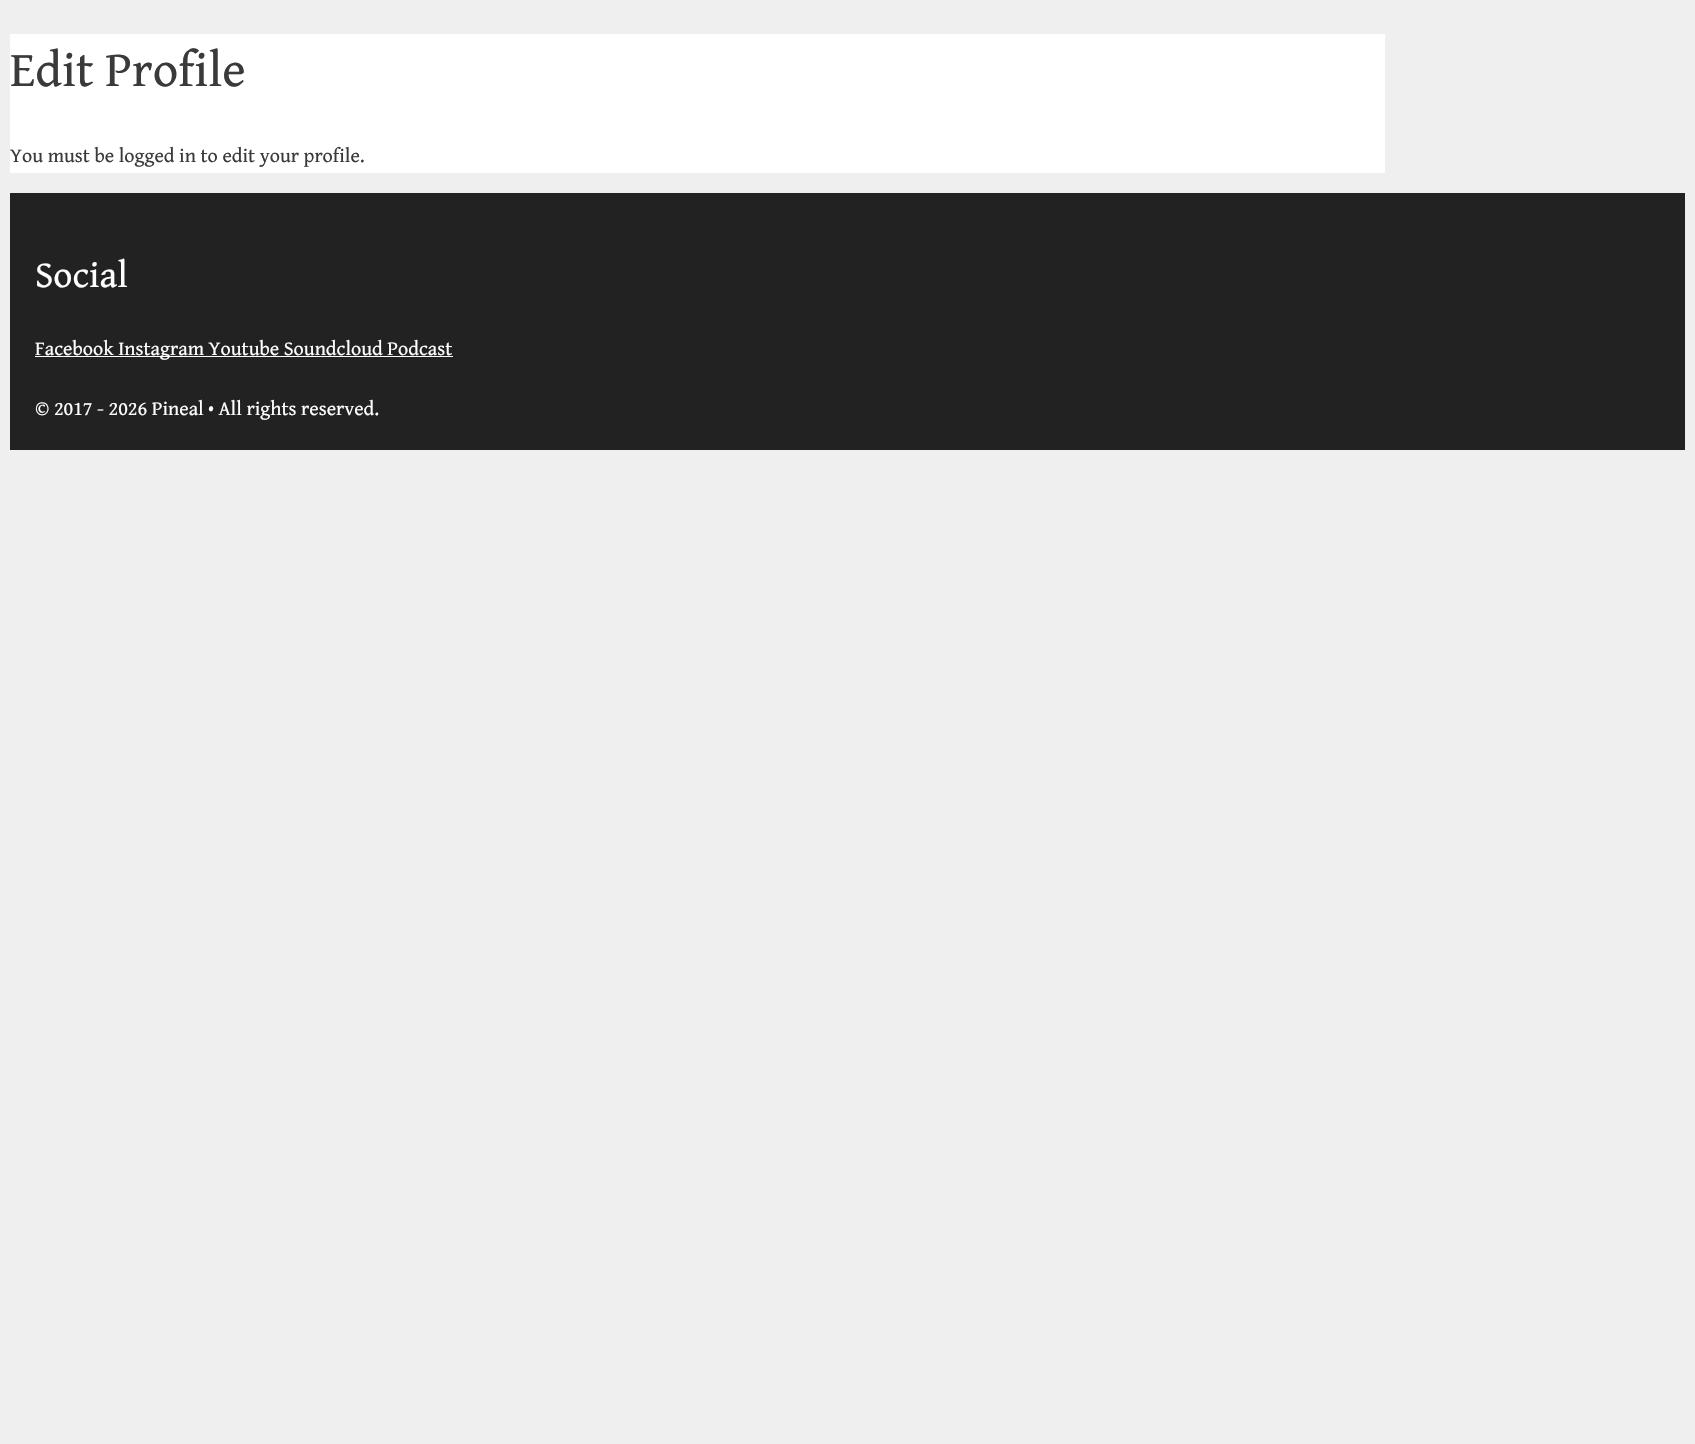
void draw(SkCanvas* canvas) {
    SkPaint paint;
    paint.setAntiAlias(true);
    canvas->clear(0xFFEFEFEF);
    paint.setColor(0xFFFFFFFF);
    canvas->drawRect(SkRect::MakeXYWH(10, 34, 1375, 139), paint);
    SkFont font1(fontMgr->matchFamilyStyle("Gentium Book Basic", SkFontStyle::Normal()), 50);
    font1.setSubpixel(true);
    paint.setColor(0xFF3A3A3A);
    canvas->drawString("Edit Profile", 10, 86, font1, paint);
    SkFont font2(fontMgr->matchFamilyStyle("Gentium Book Basic", SkFontStyle::Normal()), 20);
    font2.setSubpixel(true);
    canvas->drawString("You must be logged in to edit your profile.", 10, 162, font2, paint);
    paint.setColor(0xFF222222);
    canvas->drawRect(SkRect::MakeXYWH(10, 193, 1675, 257), paint);
    SkFont font3(fontMgr->matchFamilyStyle("Gentium Book Basic", SkFontStyle::Normal()), 37.5f);
    font3.setSubpixel(true);
    paint.setColor(0xFFFFFFFF);
    canvas->drawString("Social", 35, 287, font3, paint);
    canvas->drawRect(SkRect::MakeXYWH(35, 356, 418, 1), paint);
    canvas->drawString("Facebook Instagram Youtube Soundcloud Podcast", 35, 355, font2, paint);
    canvas->drawString("© 2017 - 2026 Pineal • All rights reserved.", 35, 415, font2, paint);
}
